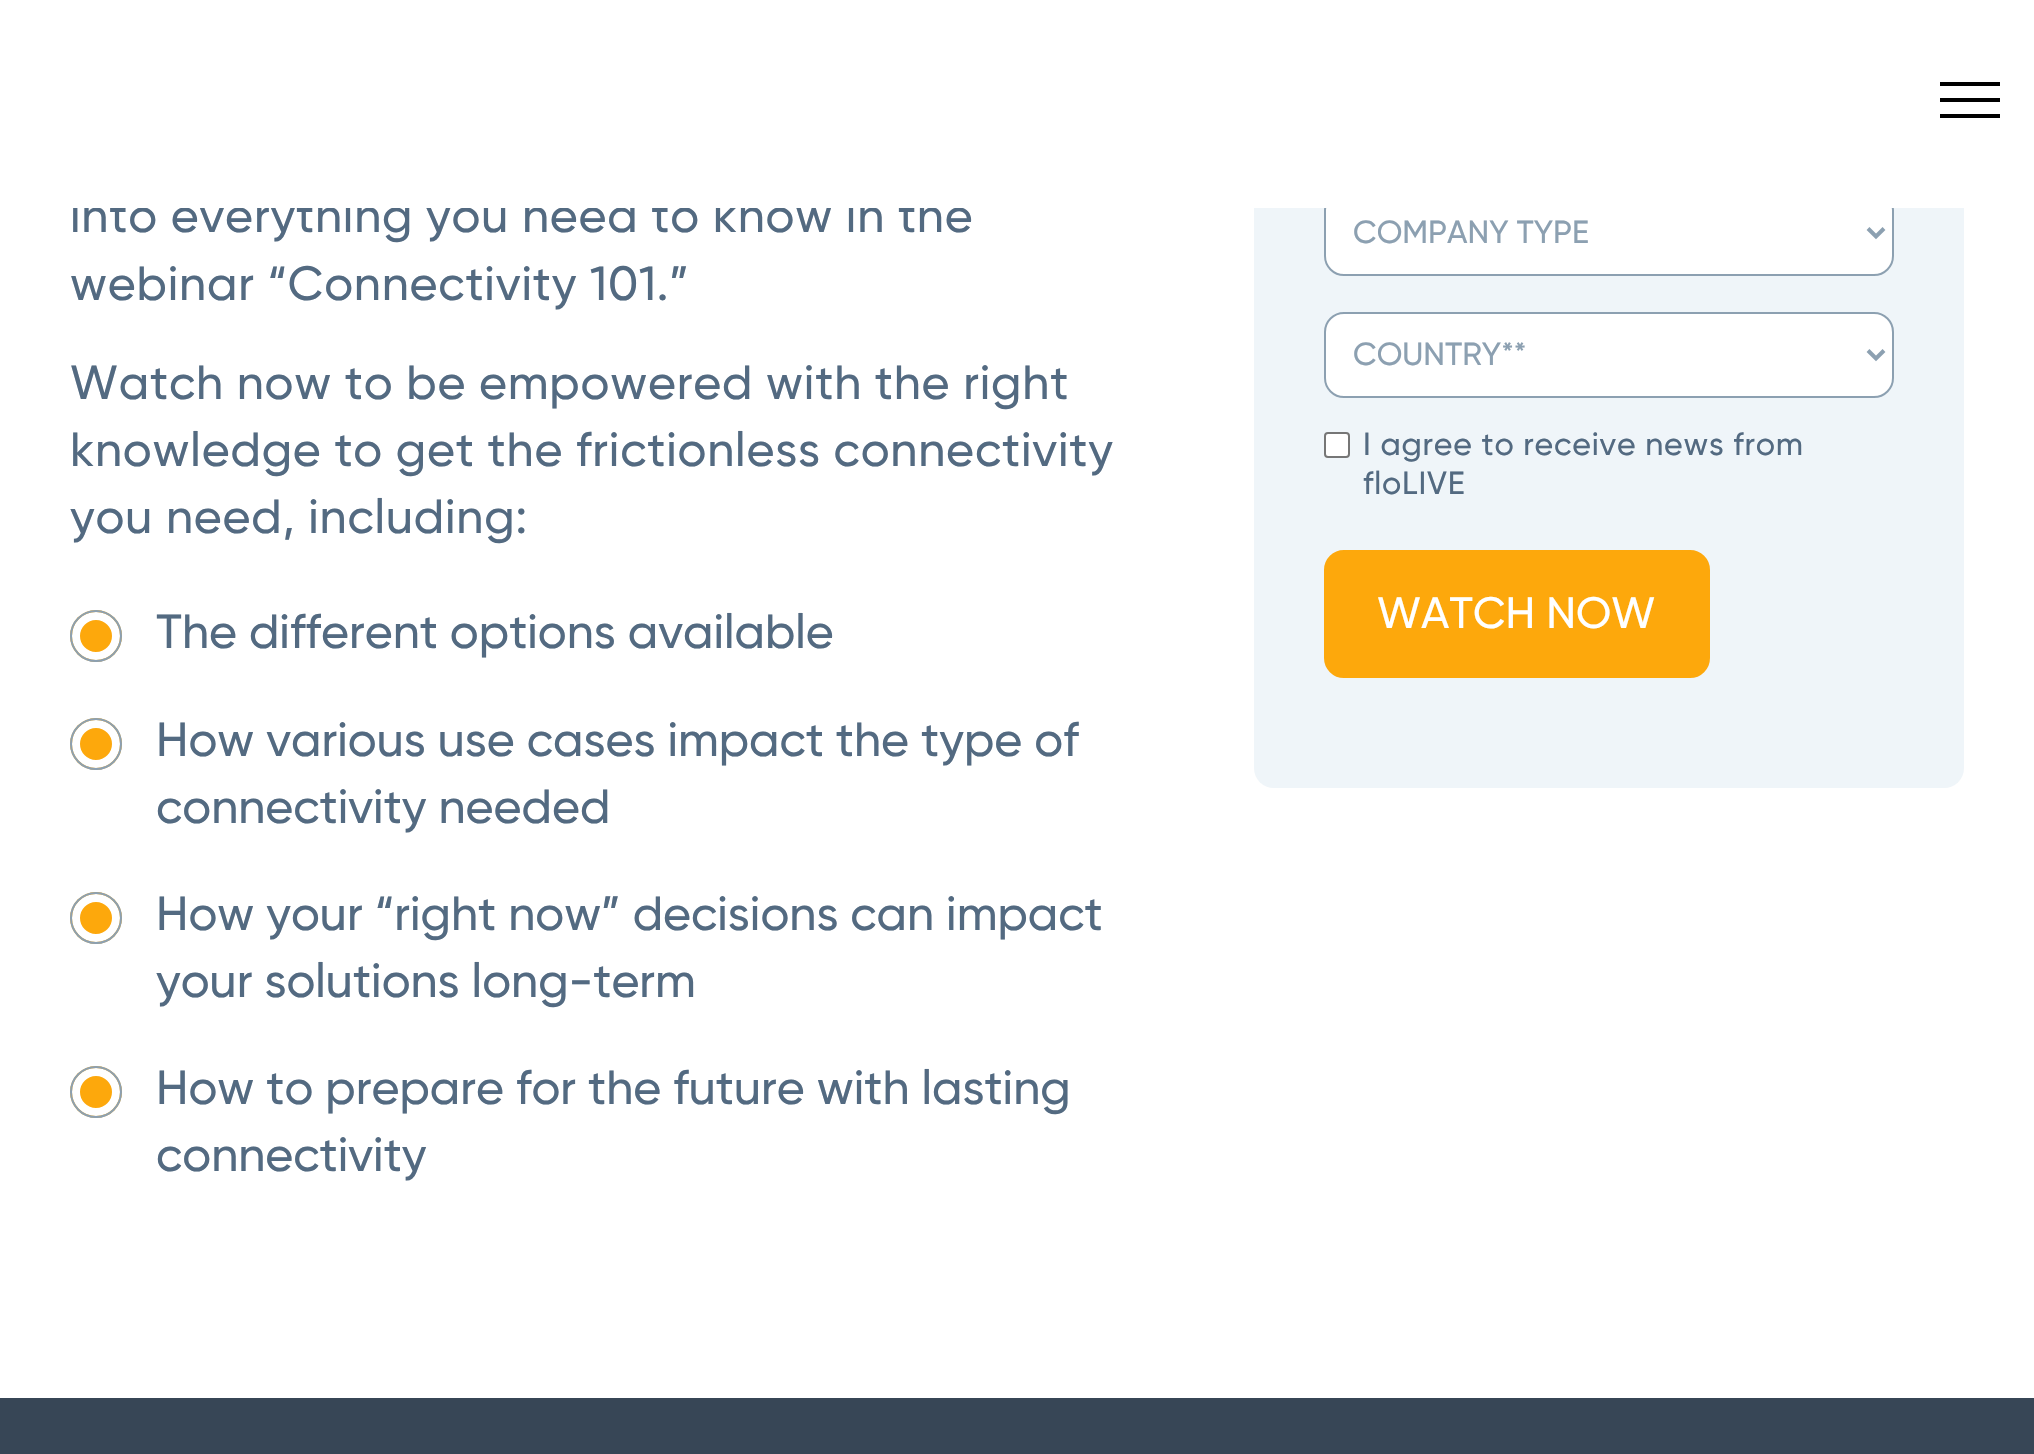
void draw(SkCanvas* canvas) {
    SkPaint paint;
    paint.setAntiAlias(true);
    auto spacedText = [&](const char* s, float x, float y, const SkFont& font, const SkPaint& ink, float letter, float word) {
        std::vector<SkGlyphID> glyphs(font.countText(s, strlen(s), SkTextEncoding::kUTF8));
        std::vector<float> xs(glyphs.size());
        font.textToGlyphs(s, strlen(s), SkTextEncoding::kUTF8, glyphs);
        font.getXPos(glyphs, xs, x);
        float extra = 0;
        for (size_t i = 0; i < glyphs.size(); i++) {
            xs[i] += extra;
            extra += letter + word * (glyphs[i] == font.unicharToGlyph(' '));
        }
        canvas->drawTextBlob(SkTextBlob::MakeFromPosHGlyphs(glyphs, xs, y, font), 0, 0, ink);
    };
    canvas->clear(0xFFFFFFFF);
    SkFont font1(fontMgr->matchFamilyStyle("Gilroy", SkFontStyle(500, SkFontStyle::kNormal_Width, SkFontStyle::kUpright_Slant)), 48);
    font1.setSubpixel(true);
    paint.setColor(0xFF536A81);
    spacedText("into everything you need to know in the", 70, 232, font1, paint, 0.8f, 0);
    paint.setColor(0xFFEFF5F9);
    canvas->drawRoundRect(SkRect::MakeXYWH(1254, -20, 710, 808), 20, 20, paint);
    paint.setColor(0xFFFFFFFF);
    canvas->drawRoundRect(SkRect::MakeXYWH(1325, 191, 568, 84), 19, 19, paint);
    paint.setStyle(SkPaint::kStroke_Style);
    paint.setStrokeWidth(2);
    paint.setColor(0xFF8CA0B1);
    canvas->drawRoundRect(SkRect::MakeXYWH(1325, 191, 568, 84), 19, 19, paint);
    paint.setStyle(SkPaint::kFill_Style);
    paint.setColor(0xFFFFFFFF);
    canvas->drawRect(SkRect::MakeXYWH(72, 0, 1892, 208), paint);
    paint.setColor(0xFF000000);
    canvas->drawRect(SkRect::MakeXYWH(1940, 82, 60, 4), paint);
    canvas->drawRect(SkRect::MakeXYWH(1940, 98, 60, 4), paint);
    canvas->drawRect(SkRect::MakeXYWH(1940, 114, 60, 4), paint);
    paint.setColor(0xFF536A81);
    spacedText("webinar “Connectivity 101.”", 70, 300, font1, paint, 0.8f, 0);
    spacedText("Watch now to be empowered with the right", 70, 399, font1, paint, 0.8f, 0);
    spacedText("knowledge to get the frictionless connectivity", 70, 466, font1, paint, 0.8f, 0);
    spacedText("you need, including:", 70, 533, font1, paint, 0.8f, 0);
    paint.setColor(0xFFFDA80C);
    canvas->drawCircle(96, 636, 26, paint);
    paint.setStyle(SkPaint::kStroke_Style);
    paint.setStrokeWidth(8);
    paint.setColor(0xFFFFFFFF);
    canvas->drawCircle(96, 636, 20, paint);
    paint.setStrokeWidth(2);
    paint.setColor(0xFF8CA0B1);
    canvas->drawCircle(96, 636, 25, paint);
    paint.setStyle(SkPaint::kFill_Style);
    paint.setColor(0xFF536A81);
    canvas->drawString("The different options available", 156, 648, font1, paint);
    paint.setColor(0xFFFDA80C);
    canvas->drawCircle(96, 744, 26, paint);
    paint.setStyle(SkPaint::kStroke_Style);
    paint.setStrokeWidth(8);
    paint.setColor(0xFFFFFFFF);
    canvas->drawCircle(96, 744, 20, paint);
    paint.setStrokeWidth(2);
    paint.setColor(0xFF8CA0B1);
    canvas->drawCircle(96, 744, 25, paint);
    paint.setStyle(SkPaint::kFill_Style);
    paint.setColor(0xFF536A81);
    canvas->drawString("How various use cases impact the type of", 156, 756, font1, paint);
    canvas->drawString("connectivity needed", 156, 823, font1, paint);
    paint.setColor(0xFFFDA80C);
    canvas->drawCircle(96, 918, 26, paint);
    paint.setStyle(SkPaint::kStroke_Style);
    paint.setStrokeWidth(8);
    paint.setColor(0xFFFFFFFF);
    canvas->drawCircle(96, 918, 20, paint);
    paint.setStrokeWidth(2);
    paint.setColor(0xFF8CA0B1);
    canvas->drawCircle(96, 918, 25, paint);
    paint.setStyle(SkPaint::kFill_Style);
    paint.setColor(0xFF536A81);
    canvas->drawString("How your “right now” decisions can impact", 156, 930, font1, paint);
    canvas->drawString("your solutions long-term", 156, 997, font1, paint);
    paint.setColor(0xFFFDA80C);
    canvas->drawCircle(96, 1092, 26, paint);
    paint.setStyle(SkPaint::kStroke_Style);
    paint.setStrokeWidth(8);
    paint.setColor(0xFFFFFFFF);
    canvas->drawCircle(96, 1092, 20, paint);
    paint.setStrokeWidth(2);
    paint.setColor(0xFF8CA0B1);
    canvas->drawCircle(96, 1092, 25, paint);
    paint.setStyle(SkPaint::kFill_Style);
    paint.setColor(0xFF536A81);
    canvas->drawString("How to prepare for the future with lasting", 156, 1104, font1, paint);
    canvas->drawString("connectivity", 156, 1171, font1, paint);
    paint.setStyle(SkPaint::kStroke_Style);
    paint.setStrokeWidth(4);
    paint.setColor(0xFF8CA0B1);
    canvas->drawPath(SkPathBuilder().moveTo(1868, 228.5f).lineTo(1876, 236.5f).lineTo(1884, 228.5f).detach(), paint);
    SkFont font2(fontMgr->matchFamilyStyle("Gilroy", SkFontStyle(500, SkFontStyle::kNormal_Width, SkFontStyle::kUpright_Slant)), 32);
    font2.setSubpixel(true);
    paint.setStyle(SkPaint::kFill_Style);
    canvas->drawString("COMPANY TYPE", 1353, 243, font2, paint);
    paint.setColor(0xFFFFFFFF);
    canvas->drawRoundRect(SkRect::MakeXYWH(1325, 313, 568, 84), 19, 19, paint);
    paint.setStyle(SkPaint::kStroke_Style);
    paint.setStrokeWidth(2);
    paint.setColor(0xFF8CA0B1);
    canvas->drawRoundRect(SkRect::MakeXYWH(1325, 313, 568, 84), 19, 19, paint);
    paint.setStrokeWidth(4);
    canvas->drawPath(SkPathBuilder().moveTo(1868, 350.5f).lineTo(1876, 358.5f).lineTo(1884, 350.5f).detach(), paint);
    paint.setStyle(SkPaint::kFill_Style);
    canvas->drawString("COUNTRY**", 1353, 365, font2, paint);
    paint.setColor(0xFFFFFFFF);
    canvas->drawRoundRect(SkRect::MakeXYWH(1325, 433, 24, 24), 3, 3, paint);
    paint.setStyle(SkPaint::kStroke_Style);
    paint.setStrokeWidth(2);
    paint.setColor(0xFF767676);
    canvas->drawRoundRect(SkRect::MakeXYWH(1325, 433, 24, 24), 3, 3, paint);
    paint.setStyle(SkPaint::kFill_Style);
    paint.setColor(0xFF536A81);
    spacedText("I agree to receive news from", 1363, 455, font2, paint, 0.8f, 0);
    spacedText("floLIVE", 1363, 494, font2, paint, 0.8f, 0);
    paint.setColor(0xFFFDA80C);
    canvas->drawRoundRect(SkRect::MakeXYWH(1326, 552, 382, 124), 18, 18, paint);
    paint.setStyle(SkPaint::kStroke_Style);
    paint.setStrokeWidth(4);
    canvas->drawRoundRect(SkRect::MakeXYWH(1326, 552, 382, 124), 18, 18, paint);
    SkFont font3(fontMgr->matchFamilyStyle("Gilroy", SkFontStyle(500, SkFontStyle::kNormal_Width, SkFontStyle::kUpright_Slant)), 44);
    font3.setSubpixel(true);
    paint.setStyle(SkPaint::kFill_Style);
    paint.setColor(0xFFFFFFFF);
    canvas->drawString("WATCH NOW", 1377, 628, font3, paint);
    paint.setColor(0xFF374656);
    canvas->drawRect(SkRect::MakeXYWH(0, 1398, 2034, 56), paint);
}
